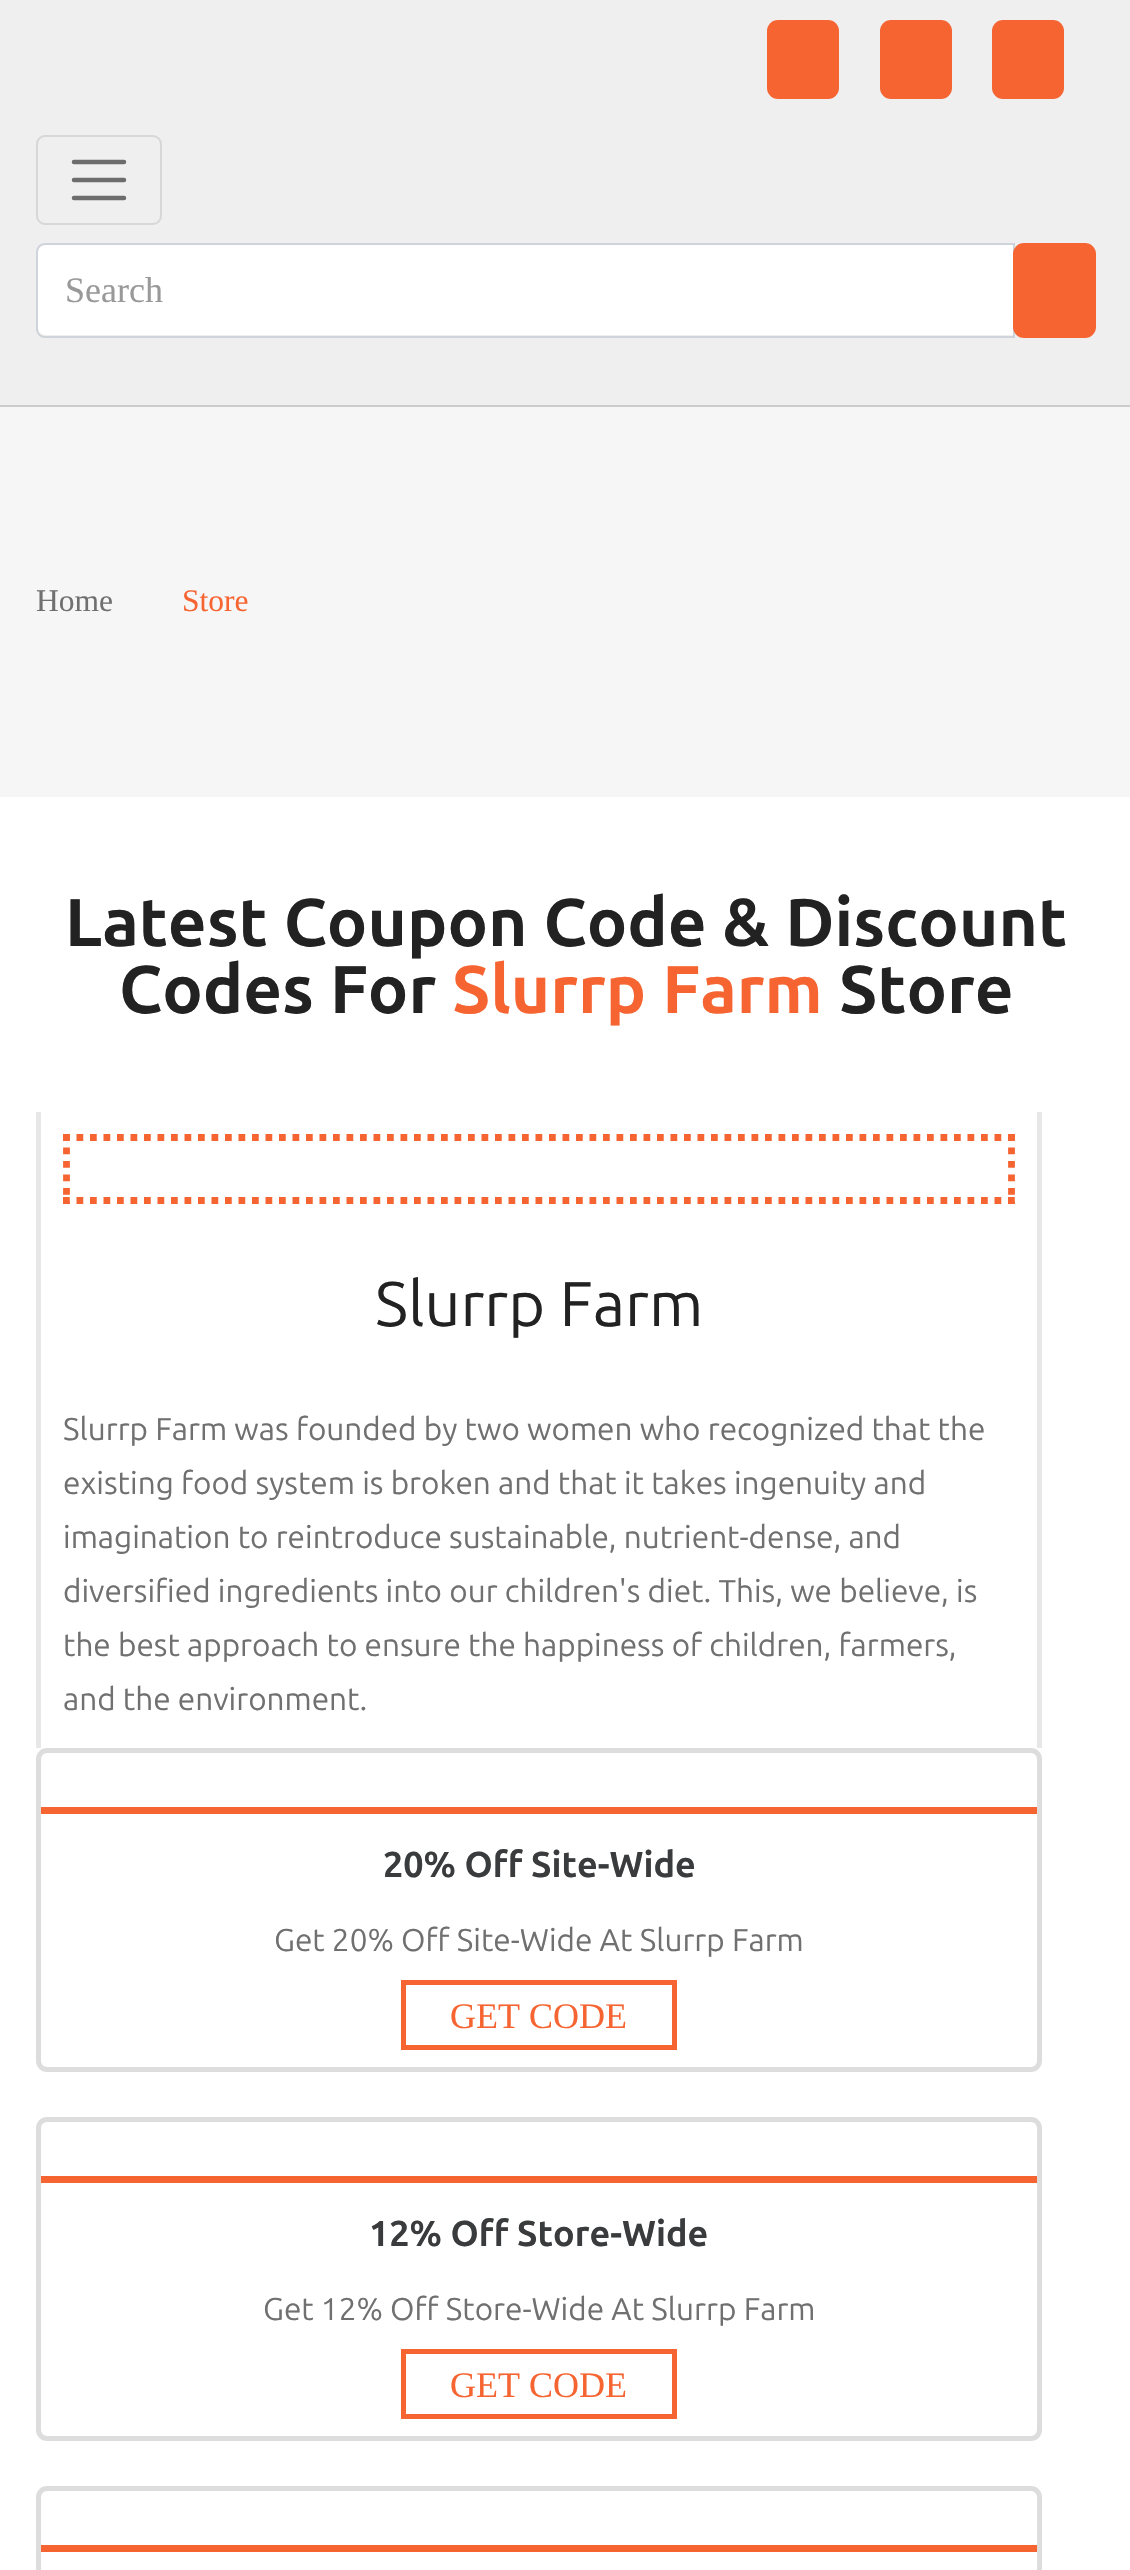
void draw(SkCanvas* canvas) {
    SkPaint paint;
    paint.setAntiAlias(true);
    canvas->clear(0xFFFFFFFF);
    paint.setColor(0xFFEFEFEF);
    canvas->drawRect(SkRect::MakeXYWH(0, 0, 1130, 405), paint);
    paint.setColor(0xFFF66431);
    canvas->drawRoundRect(SkRect::MakeXYWH(767, 20, 72, 79), 11, 11, paint);
    canvas->drawRoundRect(SkRect::MakeXYWH(880, 20, 72, 79), 11, 11, paint);
    canvas->drawRoundRect(SkRect::MakeXYWH(992, 20, 72, 79), 11, 11, paint);
    paint.setStyle(SkPaint::kStroke_Style);
    paint.setStrokeWidth(2);
    paint.setColor(0xFFD7D7D7);
    canvas->drawRoundRect(SkRect::MakeXYWH(37, 136, 124, 88), 8, 8, paint);
    paint.setStrokeWidth(4.5f);
    paint.setStrokeCap(SkPaint::kRound_Cap);
    paint.setColor(0xFF6C6C6C);
    canvas->drawPath(SkPathBuilder().moveTo(74, 162).lineTo(124, 162).moveTo(74, 180).lineTo(124, 180).moveTo(74, 198).lineTo(124, 198).detach(), paint);
    paint.setStyle(SkPaint::kFill_Style);
    paint.setColor(0xFFFFFFFF);
    canvas->drawPath(SkPathBuilder().moveTo(45, 245).lineTo(1013, 245).lineTo(1013, 335).lineTo(45, 335).cubicTo(41, 335, 38, 332, 38, 328).lineTo(38, 252).cubicTo(38, 248, 41, 245, 45, 245).close().detach(), paint);
    paint.setStyle(SkPaint::kStroke_Style);
    paint.setStrokeWidth(2);
    paint.setStrokeCap(SkPaint::kButt_Cap);
    paint.setColor(0xFFCED4DA);
    canvas->drawPath(SkPathBuilder().moveTo(45, 244).lineTo(1014, 244).lineTo(1014, 337).lineTo(45, 337).cubicTo(40.5f, 337, 37, 333.5f, 37, 329).lineTo(37, 252).cubicTo(37, 247.5f, 40.5f, 244, 45, 244).close().detach(), paint);
    SkFont font1(fontMgr->matchFamilyStyle("Liberation Serif", SkFontStyle::Normal()), 36);
    font1.setSubpixel(true);
    paint.setStyle(SkPaint::kFill_Style);
    paint.setColor(0xFF999999);
    canvas->drawString("Search", 65, 302, font1, paint);
    paint.setColor(0xFFF66431);
    canvas->drawRoundRect(SkRect::MakeXYWH(1014, 244, 81, 93), 10, 10, paint);
    paint.setStyle(SkPaint::kStroke_Style);
    canvas->drawRoundRect(SkRect::MakeXYWH(1014, 244, 81, 93), 10, 10, paint);
    paint.setStyle(SkPaint::kFill_Style);
    paint.setColor(0xFFCCCCCC);
    canvas->drawRect(SkRect::MakeXYWH(0, 405, 1130, 2), paint);
    paint.setColor(0xFFF6F6F6);
    canvas->drawRect(SkRect::MakeXYWH(0, 407, 1130, 390), paint);
    SkFont font2(fontMgr->matchFamilyStyle("Liberation Serif", SkFontStyle::Normal()), 31.5f);
    font2.setSubpixel(true);
    paint.setColor(0xFF707070);
    canvas->drawString("Home", 36, 611, font2, paint);
    paint.setColor(0xFFF66431);
    canvas->drawString("Store", 182, 611, font2, paint);
    SkFont font3(fontMgr->matchFamilyStyle("Ubuntu", SkFontStyle::Bold()), 67.5f);
    font3.setSubpixel(true);
    paint.setColor(0xFF222222);
    canvas->drawString("Latest Coupon Code & Discount", 65, 946, font3, paint);
    canvas->drawString("Codes For", 119, 1013, font3, paint);
    paint.setColor(0xFFF66431);
    canvas->drawString("Slurrp Farm", 452, 1013, font3, paint);
    paint.setColor(0xFF222222);
    canvas->drawString("Store", 839, 1013, font3, paint);
    paint.setColor(0xFFE7E7E7);
    canvas->drawRect(SkRect::MakeXYWH(1037, 1112, 5, 636), paint);
    canvas->drawRect(SkRect::MakeXYWH(36, 1112, 5, 636), paint);
    paint.setStyle(SkPaint::kStroke_Style);
    paint.setStrokeWidth(6.8f);
    paint.setColor(0xFFF66431);
    paint.setPathEffect(SkDashPathEffect::Make({{6.75f, 6.75f}}, 0));
    canvas->drawPath(SkPathBuilder().moveTo(63, 1137.5f).lineTo(1015, 1137.5f).detach(), paint);
    paint.setPathEffect(nullptr);
    paint.setPathEffect(SkDashPathEffect::Make({{6.75f, 6.75f}}, 0));
    canvas->drawPath(SkPathBuilder().moveTo(1011.5f, 1134).lineTo(1011.5f, 1204).detach(), paint);
    paint.setPathEffect(nullptr);
    paint.setPathEffect(SkDashPathEffect::Make({{6.75f, 6.75f}}, 0));
    canvas->drawPath(SkPathBuilder().moveTo(63, 1200.5f).lineTo(1015, 1200.5f).detach(), paint);
    paint.setPathEffect(nullptr);
    paint.setPathEffect(SkDashPathEffect::Make({{6.75f, 6.75f}}, 0));
    canvas->drawPath(SkPathBuilder().moveTo(66.5f, 1134).lineTo(66.5f, 1204).detach(), paint);
    paint.setPathEffect(nullptr);
    SkFont font4(fontMgr->matchFamilyStyle("Ubuntu", SkFontStyle::Normal()), 63);
    font4.setSubpixel(true);
    paint.setStyle(SkPaint::kFill_Style);
    paint.setColor(0xFF222222);
    canvas->drawString("Slurrp Farm", 375, 1326, font4, paint);
    SkFont font5(fontMgr->matchFamilyStyle("Ubuntu", SkFontStyle::Normal()), 31.5f);
    font5.setSubpixel(true);
    paint.setColor(0xFF707070);
    canvas->drawString("Slurrp Farm was founded by two women who recognized that the", 63, 1440, font5, paint);
    canvas->drawString("existing food system is broken and that it takes ingenuity and", 63, 1494, font5, paint);
    canvas->drawString("imagination to reintroduce sustainable, nutrient-dense, and", 63, 1548, font5, paint);
    canvas->drawString("diversified ingredients into our children's diet. This, we believe, is", 63, 1602, font5, paint);
    canvas->drawString("the best approach to ensure the happiness of children, farmers,", 63, 1656, font5, paint);
    canvas->drawString("and the environment.", 63, 1710, font5, paint);
    paint.setStyle(SkPaint::kStroke_Style);
    paint.setStrokeWidth(5);
    paint.setColor(0xFFDDDDDD);
    canvas->drawRoundRect(SkRect::MakeXYWH(38.5f, 1750.5f, 1001, 319), 8.5f, 8.5f, paint);
    paint.setStyle(SkPaint::kFill_Style);
    paint.setColor(0xFFF66431);
    canvas->drawRect(SkRect::MakeXYWH(41, 1807, 996, 7), paint);
    SkFont font6(fontMgr->matchFamilyStyle("Ubuntu", SkFontStyle::Bold()), 36);
    font6.setSubpixel(true);
    paint.setColor(0xFF3A3B3C);
    canvas->drawString("20% Off Site-Wide", 383, 1877, font6, paint);
    paint.setColor(0xFF707070);
    canvas->drawString("Get 20% Off Site-Wide At Slurrp Farm", 274, 1951, font5, paint);
    paint.setStyle(SkPaint::kStroke_Style);
    paint.setColor(0xFFF66431);
    canvas->drawRect(SkRect::MakeXYWH(403.5f, 1982.5f, 271, 65), paint);
    paint.setStyle(SkPaint::kFill_Style);
    canvas->drawString("GET CODE", 450, 2028, font1, paint);
    paint.setStyle(SkPaint::kStroke_Style);
    paint.setColor(0xFFDDDDDD);
    canvas->drawRoundRect(SkRect::MakeXYWH(38.5f, 2119.5f, 1001, 319), 8.5f, 8.5f, paint);
    paint.setStyle(SkPaint::kFill_Style);
    paint.setColor(0xFFF66431);
    canvas->drawRect(SkRect::MakeXYWH(41, 2176, 996, 7), paint);
    paint.setColor(0xFF3A3B3C);
    canvas->drawString("12% Off Store-Wide", 369, 2246, font6, paint);
    paint.setColor(0xFF707070);
    canvas->drawString("Get 12% Off Store-Wide At Slurrp Farm", 263, 2320, font5, paint);
    paint.setStyle(SkPaint::kStroke_Style);
    paint.setColor(0xFFF66431);
    canvas->drawRect(SkRect::MakeXYWH(403.5f, 2351.5f, 271, 65), paint);
    paint.setStyle(SkPaint::kFill_Style);
    canvas->drawString("GET CODE", 450, 2397, font1, paint);
    paint.setStyle(SkPaint::kStroke_Style);
    paint.setColor(0xFFDDDDDD);
    canvas->drawRoundRect(SkRect::MakeXYWH(38.5f, 2488.5f, 1001, 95), 8.5f, 8.5f, paint);
    paint.setStyle(SkPaint::kFill_Style);
    paint.setColor(0xFFF66431);
    canvas->drawRect(SkRect::MakeXYWH(41, 2545, 996, 7), paint);
}
